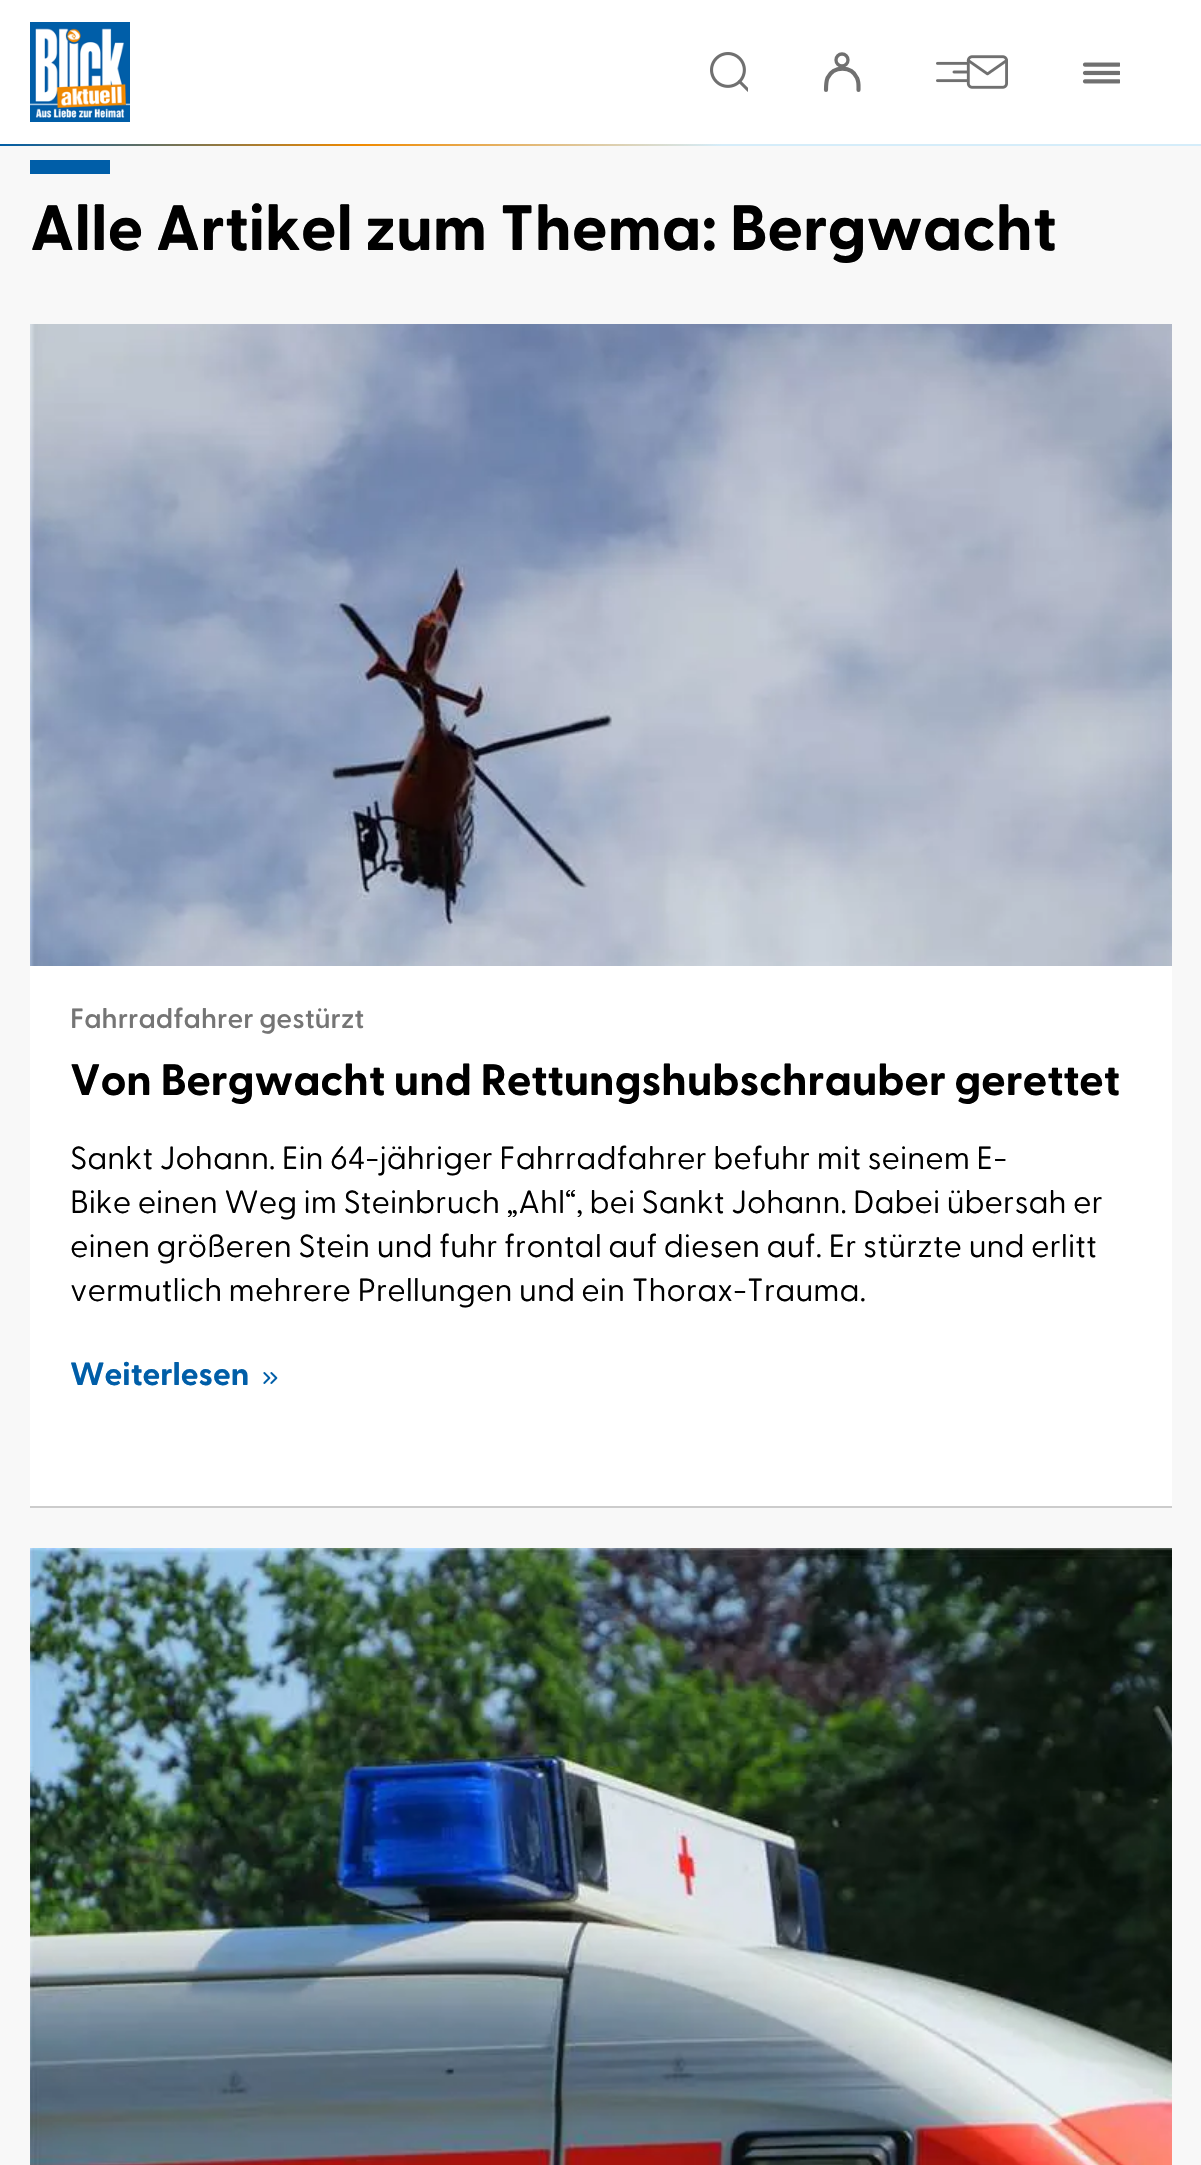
void draw(SkCanvas* canvas) {
    SkPaint paint;
    paint.setAntiAlias(true);
    canvas->clear(0xFFF8F8F8);
    paint.setColor(0xFFFFFFFF);
    canvas->drawRect(SkRect::MakeXYWH(0, 0, 1201, 144), paint);
    canvas->drawImageRect(SkImages::DeferredFromEncodedData(SkData::MakeFromFileName("img1.png")), SkRect::MakeXYWH(0, 144, 1201, 2), SkSamplingOptions());
    canvas->drawImageRect(SkImages::DeferredFromEncodedData(SkData::MakeFromFileName("img2.png")), SkRect::MakeXYWH(30, 22, 100, 100), SkSamplingOptions());
    canvas->drawImageRect(SkImages::DeferredFromEncodedData(SkData::MakeFromFileName("img3.png")), SkRect::MakeXYWH(710, 52, 38, 40), SkSamplingOptions());
    paint.setStyle(SkPaint::kStroke_Style);
    paint.setStrokeWidth(4.1f);
    paint.setStrokeCap(SkPaint::kRound_Cap);
    paint.setColor(0xFF707070);
    canvas->drawPath(SkPathBuilder().moveTo(858.5f, 90).cubicTo(858.5f, 86, 859, 82, 857, 78).cubicTo(851.5f, 65.5f, 833.5f, 65.5f, 827.5f, 78).cubicTo(826, 82, 826, 86, 826, 90).detach(), paint);
    paint.setStrokeWidth(3.3f);
    paint.setStrokeCap(SkPaint::kButt_Cap);
    canvas->drawCircle(842, 60, 6, paint);
    canvas->drawImageRect(SkImages::DeferredFromEncodedData(SkData::MakeFromFileName("img4.png")), SkRect::MakeXYWH(936, 55, 72, 34), SkSamplingOptions());
    canvas->drawImageRect(SkImages::DeferredFromEncodedData(SkData::MakeFromFileName("img5.png")), SkRect::MakeXYWH(1082, 62, 38, 22), SkSamplingOptions());
    paint.setStyle(SkPaint::kFill_Style);
    paint.setColor(0xFF005EA8);
    canvas->drawRect(SkRect::MakeXYWH(30, 160, 80, 14), paint);
    SkFont font1(fontMgr->matchFamilyStyle("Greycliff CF", SkFontStyle::Bold()), 64);
    font1.setSubpixel(true);
    paint.setColor(0xFF000000);
    canvas->drawString("Alle Artikel zum Thema: Bergwacht", 30, 250, font1, paint);
    paint.setColor(0xFFFFFFFF);
    canvas->drawRect(SkRect::MakeXYWH(30, 966, 1142, 540), paint);
    canvas->drawImageRect(SkImages::DeferredFromEncodedData(SkData::MakeFromFileName("img6.png")), SkRect::MakeXYWH(30, 324, 1142, 642), SkSamplingOptions());
    SkFont font2(fontMgr->matchFamilyStyle("Greycliff CF", SkFontStyle(600, SkFontStyle::kNormal_Width, SkFontStyle::kUpright_Slant)), 28);
    font2.setSubpixel(true);
    paint.setColor(0xFF757575);
    canvas->drawString("Fahrradfahrer gestürzt", 70, 1028, font2, paint);
    SkFont font3(fontMgr->matchFamilyStyle("Greycliff CF", SkFontStyle::Bold()), 44);
    font3.setSubpixel(true);
    paint.setColor(0xFF000000);
    canvas->drawString("Von Bergwacht und Rettungshubschrauber gerettet", 70, 1095, font3, paint);
    SkFont font4(fontMgr->matchFamilyStyle("Greycliff CF", SkFontStyle::Normal()), 32);
    font4.setSubpixel(true);
    canvas->drawString("Sankt Johann. Ein 64-jähriger Fahrradfahrer befuhr mit seinem E-", 70, 1169, font4, paint);
    canvas->drawString("Bike einen Weg im Steinbruch „Ahl“, bei Sankt Johann. Dabei übersah er", 70, 1213, font4, paint);
    canvas->drawString("einen größeren Stein und fuhr frontal auf diesen auf. Er stürzte und erlitt", 70, 1257, font4, paint);
    canvas->drawString("vermutlich mehrere Prellungen und ein Thorax-Trauma.", 70, 1301, font4, paint);
    SkFont font5(fontMgr->matchFamilyStyle("Greycliff CF", SkFontStyle::Bold()), 32);
    font5.setSubpixel(true);
    paint.setColor(0xFF005EA8);
    canvas->drawString("Weiterlesen", 70, 1385, font5, paint);
    canvas->drawImageRect(SkImages::DeferredFromEncodedData(SkData::MakeFromFileName("img7.png")), SkRect::MakeXYWH(263, 1372, 15, 12), SkSamplingOptions());
    paint.setColor(0xFFCCCCCC);
    canvas->drawRect(SkRect::MakeXYWH(30, 1506, 1142, 2), paint);
    canvas->drawImageRect(SkImages::DeferredFromEncodedData(SkData::MakeFromFileName("img8.png")), SkRect::MakeXYWH(30, 1548, 1142, 617), SkSamplingOptions());
}
